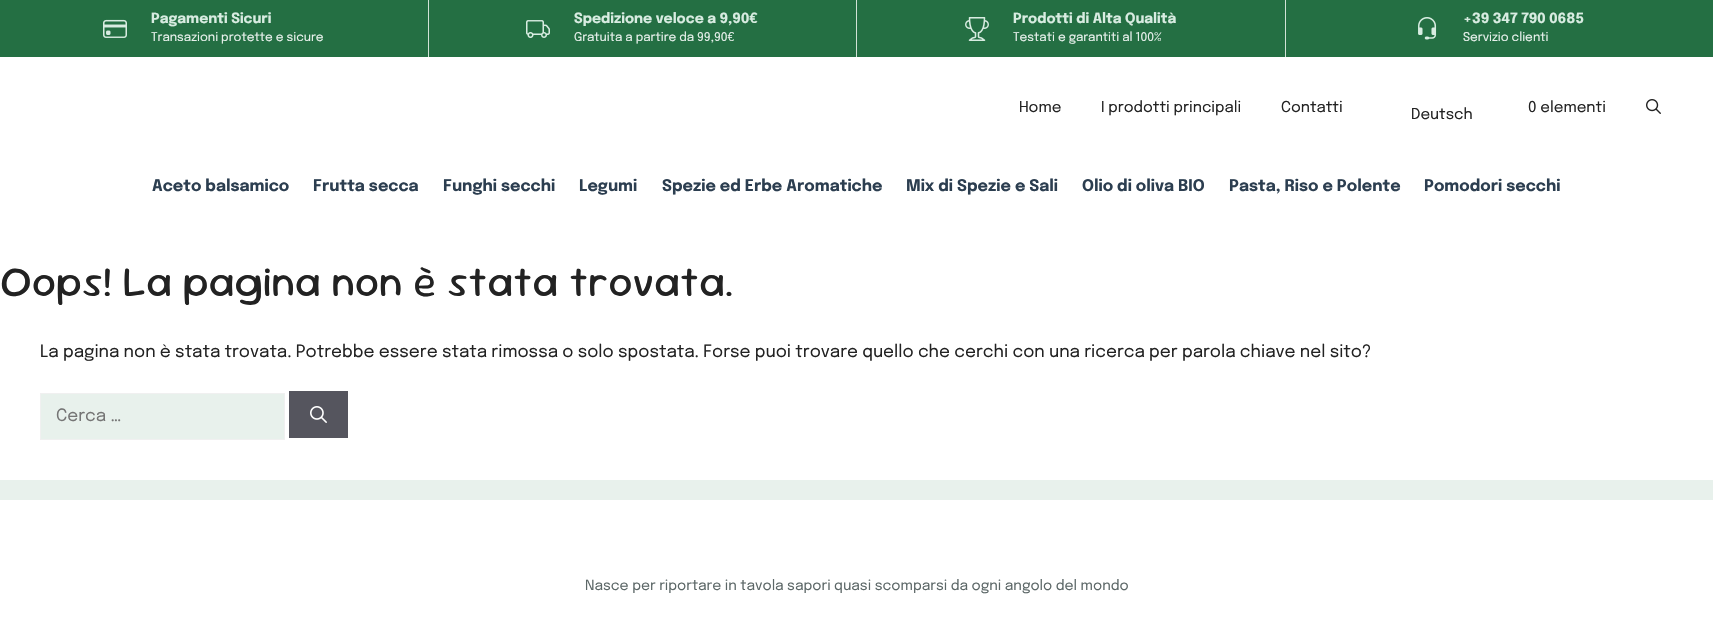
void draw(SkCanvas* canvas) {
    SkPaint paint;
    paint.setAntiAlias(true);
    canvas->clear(0xFFE8F1EC);
    paint.setColor(0xFF246F43);
    canvas->drawRect(SkRect::MakeXYWH(0, 0, 1713, 57), paint);
    paint.setColor(0xFFD1E2D6);
    canvas->drawRect(SkRect::MakeXYWH(428, 0, 1, 57), paint);
    canvas->drawImageRect(SkImages::DeferredFromEncodedData(SkData::MakeFromFileName("img1.png")), SkRect::MakeXYWH(103, 19, 24, 19), SkSamplingOptions());
    SkFont font1(fontMgr->matchFamilyStyle("Epilogue", SkFontStyle::Bold()), 14);
    font1.setSubpixel(true);
    paint.setColor(0xFFD8ECE1);
    canvas->drawString("Pagamenti Sicuri", 151, 23, font1, paint);
    SkFont font2(fontMgr->matchFamilyStyle("Epilogue", SkFontStyle::Normal()), 12);
    font2.setSubpixel(true);
    paint.setColor(0xFFE8F1EC);
    canvas->drawString("Transazioni protette e sicure", 151, 41, font2, paint);
    paint.setColor(0xFFD1E2D6);
    canvas->drawRect(SkRect::MakeXYWH(856, 0, 1, 57), paint);
    canvas->drawImageRect(SkImages::DeferredFromEncodedData(SkData::MakeFromFileName("img2.png")), SkRect::MakeXYWH(526, 20, 24, 18), SkSamplingOptions());
    paint.setColor(0xFFD8ECE1);
    canvas->drawString("Spedizione veloce a 9,90€", 574, 23, font1, paint);
    paint.setColor(0xFFE8F1EC);
    canvas->drawString("Gratuita a partire da 99,90€", 574, 41, font2, paint);
    paint.setColor(0xFFD1E2D6);
    canvas->drawRect(SkRect::MakeXYWH(1285, 0, 1, 57), paint);
    canvas->drawImageRect(SkImages::DeferredFromEncodedData(SkData::MakeFromFileName("img3.png")), SkRect::MakeXYWH(965, 17, 24, 24), SkSamplingOptions());
    paint.setColor(0xFFD8ECE1);
    canvas->drawString("Prodotti di Alta Qualità", 1013, 23, font1, paint);
    paint.setColor(0xFFE8F1EC);
    canvas->drawString("Testati e garantiti al 100%", 1013, 41, font2, paint);
    canvas->drawImageRect(SkImages::DeferredFromEncodedData(SkData::MakeFromFileName("img4.png")), SkRect::MakeXYWH(1418, 17, 19, 23), SkSamplingOptions());
    paint.setColor(0xFFD8ECE1);
    canvas->drawString("+39 347 790 0685", 1463, 23, font1, paint);
    paint.setColor(0xFFE8F1EC);
    canvas->drawString("Servizio clienti", 1463, 41, font2, paint);
    paint.setColor(0xFFFFFFFF);
    canvas->drawRect(SkRect::MakeXYWH(0, 57, 1713, 423), paint);
    SkFont font3(fontMgr->matchFamilyStyle("Epilogue", SkFontStyle::Normal()), 15);
    font3.setSubpixel(true);
    paint.setColor(0xFF222222);
    canvas->drawString("Home", 1019, 112, font3, paint);
    canvas->drawString("I prodotti principali", 1101, 112, font3, paint);
    canvas->drawString("Contatti", 1281, 112, font3, paint);
    canvas->drawString("Deutsch", 1411, 119, font3, paint);
    canvas->drawString("0 elementi", 1528, 112, font3, paint);
    canvas->drawImageRect(SkImages::DeferredFromEncodedData(SkData::MakeFromFileName("img5.png")), SkRect::MakeXYWH(1646, 99, 15, 15), SkSamplingOptions());
    SkFont font4(fontMgr->matchFamilyStyle("Epilogue", SkFontStyle::Bold()), 16);
    font4.setSubpixel(true);
    paint.setColor(0xFF2C3E50);
    canvas->drawString("Aceto balsamico", 152, 191, font4, paint);
    canvas->drawString("Frutta secca", 313, 191, font4, paint);
    canvas->drawString("Funghi secchi", 443, 191, font4, paint);
    canvas->drawString("Legumi", 579, 191, font4, paint);
    canvas->drawString("Spezie ed Erbe Aromatiche", 662, 191, font4, paint);
    canvas->drawString("Mix di Spezie e Sali", 906, 191, font4, paint);
    canvas->drawString("Olio di oliva BIO", 1082, 191, font4, paint);
    canvas->drawString("Pasta, Riso e Polente", 1229, 191, font4, paint);
    canvas->drawString("Pomodori secchi", 1424, 191, font4, paint);
    SkFont font5(fontMgr->matchFamilyStyle("Sour Gummy", SkFontStyle::Normal()), 42);
    font5.setSubpixel(true);
    paint.setColor(0xFF222222);
    canvas->drawString("Oops! La pagina non è stata trovata.", 0, 296, font5, paint);
    SkFont font6(fontMgr->matchFamilyStyle("Epilogue", SkFontStyle::Normal()), 17);
    font6.setSubpixel(true);
    canvas->drawString("La pagina non è stata trovata. Potrebbe essere stata rimossa o solo spostata. Forse puoi trovare quello che cerchi con una ricerca per parola chiave nel sito?", 40, 357, font6, paint);
    paint.setColor(0xFFE8F1EC);
    canvas->drawRect(SkRect::MakeXYWH(40.5f, 393.5f, 244, 46), paint);
    paint.setStyle(SkPaint::kStroke_Style);
    paint.setStrokeWidth(1);
    paint.setColor(0xFFF0F0F0);
    canvas->drawRect(SkRect::MakeXYWH(40.5f, 393.5f, 244, 46), paint);
    paint.setStyle(SkPaint::kFill_Style);
    paint.setColor(0xFF757575);
    canvas->drawString("Cerca …", 56, 421, font6, paint);
    paint.setColor(0xFF55555E);
    canvas->drawRect(SkRect::MakeXYWH(289, 391, 59, 47), paint);
    canvas->drawImageRect(SkImages::DeferredFromEncodedData(SkData::MakeFromFileName("img6.png")), SkRect::MakeXYWH(310, 406, 17, 17), SkSamplingOptions());
    paint.setColor(0xFFFFFFFF);
    canvas->drawRect(SkRect::MakeXYWH(0, 500, 1713, 123), paint);
    SkFont font7(fontMgr->matchFamilyStyle("Epilogue", SkFontStyle::Normal()), 14);
    font7.setSubpixel(true);
    paint.setColor(0xFF5C6767);
    canvas->drawString("Nasce per riportare in tavola sapori quasi scomparsi da ogni angolo del mondo", 585, 590, font7, paint);
}
